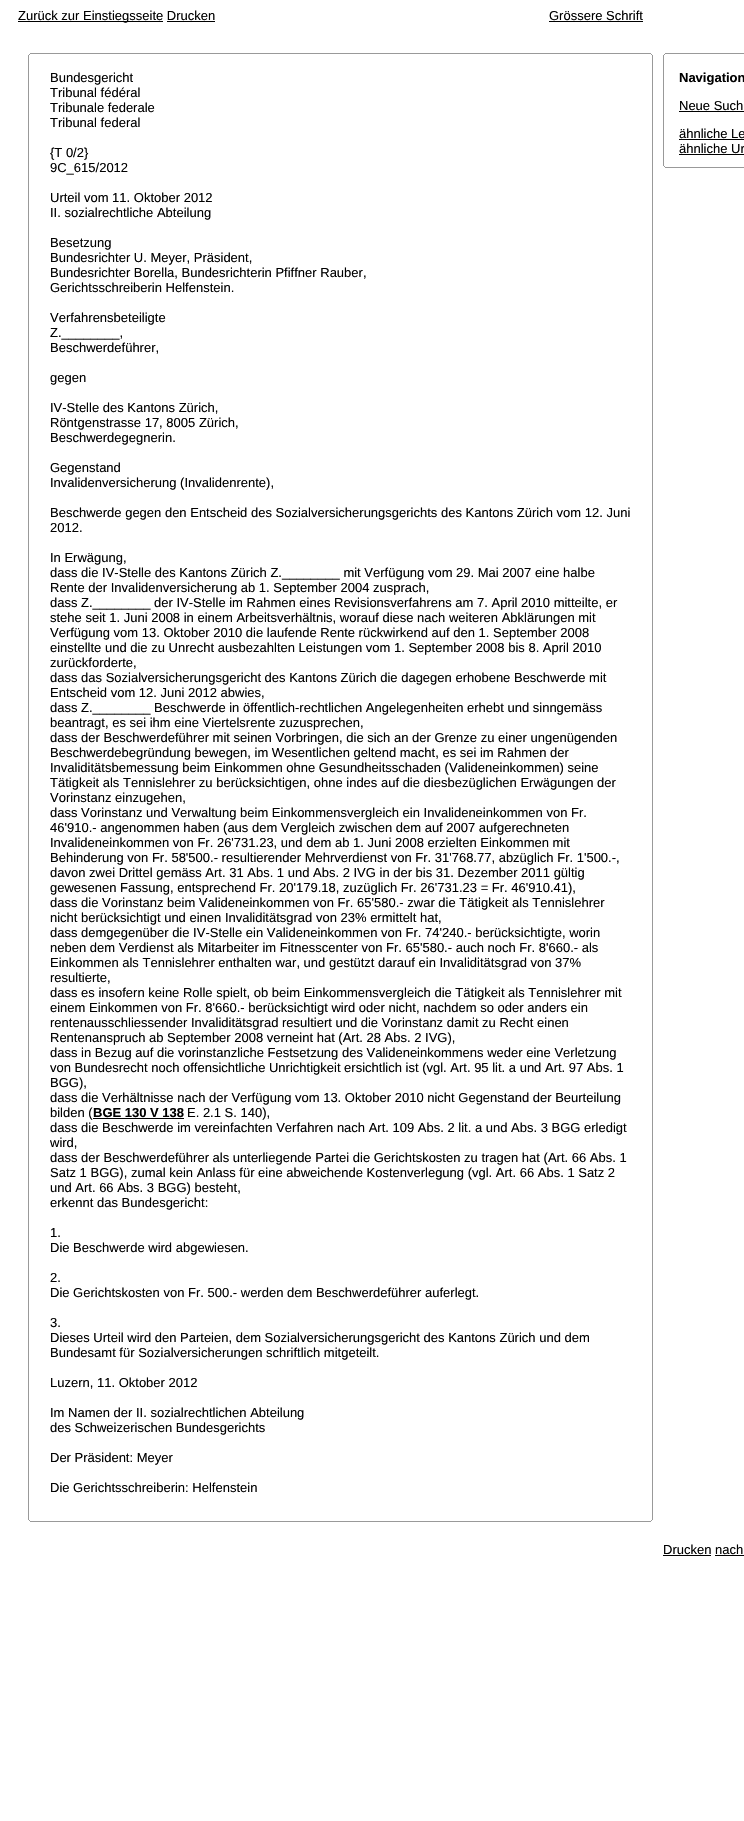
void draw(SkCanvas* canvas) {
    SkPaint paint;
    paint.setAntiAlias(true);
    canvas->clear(0xFFFFFFFF);
    paint.setColor(0xFF000000);
    canvas->drawRect(SkRect::MakeXYWH(18, 21, 145, 1), paint);
    SkFont font1(fontMgr->matchFamilyStyle("Liberation Sans", SkFontStyle::Normal()), 13);
    font1.setSubpixel(true);
    canvas->drawString("Zurück zur Einstiegsseite Drucken", 18, 20, font1, paint);
    canvas->drawRect(SkRect::MakeXYWH(167, 21, 48, 1), paint);
    canvas->drawString("Grössere Schrift", 549, 20, font1, paint);
    canvas->drawRect(SkRect::MakeXYWH(549, 21, 94, 1), paint);
    paint.setColor(0xFF999999);
    canvas->drawRect(SkRect::MakeXYWH(30, 53, 621, 1), paint);
    canvas->drawRect(SkRect::MakeXYWH(651, 54, 1, 1), paint);
    canvas->drawRect(SkRect::MakeXYWH(29, 54, 1, 1), paint);
    canvas->drawRect(SkRect::MakeXYWH(652, 55, 1, 1465), paint);
    canvas->drawRect(SkRect::MakeXYWH(28, 55, 1, 1465), paint);
    paint.setColor(0xFF000000);
    canvas->drawString("Bundesgericht", 50, 82, font1, paint);
    canvas->drawString("Tribunal fédéral", 50, 97, font1, paint);
    canvas->drawString("Tribunale federale", 50, 112, font1, paint);
    canvas->drawString("Tribunal federal", 50, 127, font1, paint);
    canvas->drawString("{T 0/2}", 50, 157, font1, paint);
    canvas->drawString("9C_615/2012", 50, 172, font1, paint);
    canvas->drawString("Urteil vom 11. Oktober 2012", 50, 202, font1, paint);
    canvas->drawString("II. sozialrechtliche Abteilung", 50, 217, font1, paint);
    canvas->drawString("Besetzung", 50, 247, font1, paint);
    canvas->drawString("Bundesrichter U. Meyer, Präsident,", 50, 262, font1, paint);
    canvas->drawString("Bundesrichter Borella, Bundesrichterin Pfiffner Rauber,", 50, 277, font1, paint);
    canvas->drawString("Gerichtsschreiberin Helfenstein.", 50, 292, font1, paint);
    canvas->drawString("Verfahrensbeteiligte", 50, 322, font1, paint);
    canvas->drawString("Z.________,", 50, 337, font1, paint);
    canvas->drawString("Beschwerdeführer,", 50, 352, font1, paint);
    canvas->drawString("gegen", 50, 382, font1, paint);
    canvas->drawString("IV-Stelle des Kantons Zürich,", 50, 412, font1, paint);
    canvas->drawString("Röntgenstrasse 17, 8005 Zürich,", 50, 427, font1, paint);
    canvas->drawString("Beschwerdegegnerin.", 50, 442, font1, paint);
    canvas->drawString("Gegenstand", 50, 472, font1, paint);
    canvas->drawString("Invalidenversicherung (Invalidenrente),", 50, 487, font1, paint);
    canvas->drawString("Beschwerde gegen den Entscheid des Sozialversicherungsgerichts des Kantons Zürich vom 12. Juni", 50, 517, font1, paint);
    canvas->drawString("2012.", 50, 532, font1, paint);
    canvas->drawString("In Erwägung,", 50, 562, font1, paint);
    canvas->drawString("dass die IV-Stelle des Kantons Zürich Z.________ mit Verfügung vom 29. Mai 2007 eine halbe", 50, 577, font1, paint);
    canvas->drawString("Rente der Invalidenversicherung ab 1. September 2004 zusprach,", 50, 592, font1, paint);
    canvas->drawString("dass Z.________ der IV-Stelle im Rahmen eines Revisionsverfahrens am 7. April 2010 mitteilte, er", 50, 607, font1, paint);
    canvas->drawString("stehe seit 1. Juni 2008 in einem Arbeitsverhältnis, worauf diese nach weiteren Abklärungen mit", 50, 622, font1, paint);
    canvas->drawString("Verfügung vom 13. Oktober 2010 die laufende Rente rückwirkend auf den 1. September 2008", 50, 637, font1, paint);
    canvas->drawString("einstellte und die zu Unrecht ausbezahlten Leistungen vom 1. September 2008 bis 8. April 2010", 50, 652, font1, paint);
    canvas->drawString("zurückforderte,", 50, 667, font1, paint);
    canvas->drawString("dass das Sozialversicherungsgericht des Kantons Zürich die dagegen erhobene Beschwerde mit", 50, 682, font1, paint);
    canvas->drawString("Entscheid vom 12. Juni 2012 abwies,", 50, 697, font1, paint);
    canvas->drawString("dass Z.________ Beschwerde in öffentlich-rechtlichen Angelegenheiten erhebt und sinngemäss", 50, 712, font1, paint);
    canvas->drawString("beantragt, es sei ihm eine Viertelsrente zuzusprechen,", 50, 727, font1, paint);
    canvas->drawString("dass der Beschwerdeführer mit seinen Vorbringen, die sich an der Grenze zu einer ungenügenden", 50, 742, font1, paint);
    canvas->drawString("Beschwerdebegründung bewegen, im Wesentlichen geltend macht, es sei im Rahmen der", 50, 757, font1, paint);
    canvas->drawString("Invaliditätsbemessung beim Einkommen ohne Gesundheitsschaden (Valideneinkommen) seine", 50, 772, font1, paint);
    canvas->drawString("Tätigkeit als Tennislehrer zu berücksichtigen, ohne indes auf die diesbezüglichen Erwägungen der", 50, 787, font1, paint);
    canvas->drawString("Vorinstanz einzugehen,", 50, 802, font1, paint);
    canvas->drawString("dass Vorinstanz und Verwaltung beim Einkommensvergleich ein Invalideneinkommen von Fr.", 50, 817, font1, paint);
    canvas->drawString("46'910.- angenommen haben (aus dem Vergleich zwischen dem auf 2007 aufgerechneten", 50, 832, font1, paint);
    canvas->drawString("Invalideneinkommen von Fr. 26'731.23, und dem ab 1. Juni 2008 erzielten Einkommen mit", 50, 847, font1, paint);
    canvas->drawString("Behinderung von Fr. 58'500.- resultierender Mehrverdienst von Fr. 31'768.77, abzüglich Fr. 1'500.-,", 50, 862, font1, paint);
    canvas->drawString("davon zwei Drittel gemäss Art. 31 Abs. 1 und Abs. 2 IVG in der bis 31. Dezember 2011 gültig", 50, 877, font1, paint);
    canvas->drawString("gewesenen Fassung, entsprechend Fr. 20'179.18, zuzüglich Fr. 26'731.23 = Fr. 46'910.41),", 50, 892, font1, paint);
    canvas->drawString("dass die Vorinstanz beim Valideneinkommen von Fr. 65'580.- zwar die Tätigkeit als Tennislehrer", 50, 907, font1, paint);
    canvas->drawString("nicht berücksichtigt und einen Invaliditätsgrad von 23% ermittelt hat,", 50, 922, font1, paint);
    canvas->drawString("dass demgegenüber die IV-Stelle ein Valideneinkommen von Fr. 74'240.- berücksichtigte, worin", 50, 937, font1, paint);
    canvas->drawString("neben dem Verdienst als Mitarbeiter im Fitnesscenter von Fr. 65'580.- auch noch Fr. 8'660.- als", 50, 952, font1, paint);
    canvas->drawString("Einkommen als Tennislehrer enthalten war, und gestützt darauf ein Invaliditätsgrad von 37%", 50, 967, font1, paint);
    canvas->drawString("resultierte,", 50, 982, font1, paint);
    canvas->drawString("dass es insofern keine Rolle spielt, ob beim Einkommensvergleich die Tätigkeit als Tennislehrer mit", 50, 997, font1, paint);
    canvas->drawString("einem Einkommen von Fr. 8'660.- berücksichtigt wird oder nicht, nachdem so oder anders ein", 50, 1012, font1, paint);
    canvas->drawString("rentenausschliessender Invaliditätsgrad resultiert und die Vorinstanz damit zu Recht einen", 50, 1027, font1, paint);
    canvas->drawString("Rentenanspruch ab September 2008 verneint hat (Art. 28 Abs. 2 IVG),", 50, 1042, font1, paint);
    canvas->drawString("dass in Bezug auf die vorinstanzliche Festsetzung des Valideneinkommens weder eine Verletzung", 50, 1057, font1, paint);
    canvas->drawString("von Bundesrecht noch offensichtliche Unrichtigkeit ersichtlich ist (vgl. Art. 95 lit. a und Art. 97 Abs. 1", 50, 1072, font1, paint);
    canvas->drawString("BGG),", 50, 1087, font1, paint);
    canvas->drawString("dass die Verhältnisse nach der Verfügung vom 13. Oktober 2010 nicht Gegenstand der Beurteilung", 50, 1102, font1, paint);
    canvas->drawString("bilden (", 50, 1117, font1, paint);
    SkFont font2(fontMgr->matchFamilyStyle("Liberation Sans", SkFontStyle::Bold()), 13);
    font2.setSubpixel(true);
    canvas->drawString("BGE 130 V 138", 93, 1117, font2, paint);
    canvas->drawRect(SkRect::MakeXYWH(93, 1118, 91, 1), paint);
    canvas->drawString("E. 2.1 S. 140),", 187, 1117, font1, paint);
    canvas->drawString("dass die Beschwerde im vereinfachten Verfahren nach Art. 109 Abs. 2 lit. a und Abs. 3 BGG erledigt", 50, 1132, font1, paint);
    canvas->drawString("wird,", 50, 1147, font1, paint);
    canvas->drawString("dass der Beschwerdeführer als unterliegende Partei die Gerichtskosten zu tragen hat (Art. 66 Abs. 1", 50, 1162, font1, paint);
    canvas->drawString("Satz 1 BGG), zumal kein Anlass für eine abweichende Kostenverlegung (vgl. Art. 66 Abs. 1 Satz 2", 50, 1177, font1, paint);
    canvas->drawString("und Art. 66 Abs. 3 BGG) besteht,", 50, 1192, font1, paint);
    canvas->drawString("erkennt das Bundesgericht:", 50, 1207, font1, paint);
    canvas->drawString("1.", 50, 1237, font1, paint);
    canvas->drawString("Die Beschwerde wird abgewiesen.", 50, 1252, font1, paint);
    canvas->drawString("2.", 50, 1282, font1, paint);
    canvas->drawString("Die Gerichtskosten von Fr. 500.- werden dem Beschwerdeführer auferlegt.", 50, 1297, font1, paint);
    canvas->drawString("3.", 50, 1327, font1, paint);
    canvas->drawString("Dieses Urteil wird den Parteien, dem Sozialversicherungsgericht des Kantons Zürich und dem", 50, 1342, font1, paint);
    canvas->drawString("Bundesamt für Sozialversicherungen schriftlich mitgeteilt.", 50, 1357, font1, paint);
    canvas->drawString("Luzern, 11. Oktober 2012", 50, 1387, font1, paint);
    canvas->drawString("Im Namen der II. sozialrechtlichen Abteilung", 50, 1417, font1, paint);
    canvas->drawString("des Schweizerischen Bundesgerichts", 50, 1432, font1, paint);
    canvas->drawString("Der Präsident: Meyer", 50, 1462, font1, paint);
    canvas->drawString("Die Gerichtsschreiberin: Helfenstein", 50, 1492, font1, paint);
    paint.setColor(0xFF999999);
    canvas->drawRect(SkRect::MakeXYWH(651, 1520, 1, 1), paint);
    canvas->drawRect(SkRect::MakeXYWH(29, 1520, 1, 1), paint);
    canvas->drawRect(SkRect::MakeXYWH(30, 1521, 621, 1), paint);
    canvas->drawRect(SkRect::MakeXYWH(665, 53, 79, 1), paint);
    canvas->drawRect(SkRect::MakeXYWH(664, 54, 1, 1), paint);
    canvas->drawRect(SkRect::MakeXYWH(663, 55, 1, 111), paint);
    paint.setColor(0xFF000000);
    canvas->drawString("Navigation", 679, 82, font2, paint);
    canvas->drawString("Neue Such", 679, 110, font1, paint);
    canvas->drawRect(SkRect::MakeXYWH(679, 111, 65, 1), paint);
    canvas->drawString("ähnliche Le", 679, 138, font1, paint);
    canvas->drawRect(SkRect::MakeXYWH(679, 139, 65, 1), paint);
    canvas->drawString("ähnliche Ur", 679, 153, font1, paint);
    canvas->drawRect(SkRect::MakeXYWH(679, 154, 65, 1), paint);
    paint.setColor(0xFF999999);
    canvas->drawRect(SkRect::MakeXYWH(664, 166, 1, 1), paint);
    canvas->drawRect(SkRect::MakeXYWH(665, 167, 79, 1), paint);
    paint.setColor(0xFF000000);
    canvas->drawString("Drucken nach", 663, 1554, font1, paint);
    canvas->drawRect(SkRect::MakeXYWH(663, 1555, 48, 1), paint);
    canvas->drawRect(SkRect::MakeXYWH(715, 1555, 29, 1), paint);
}
